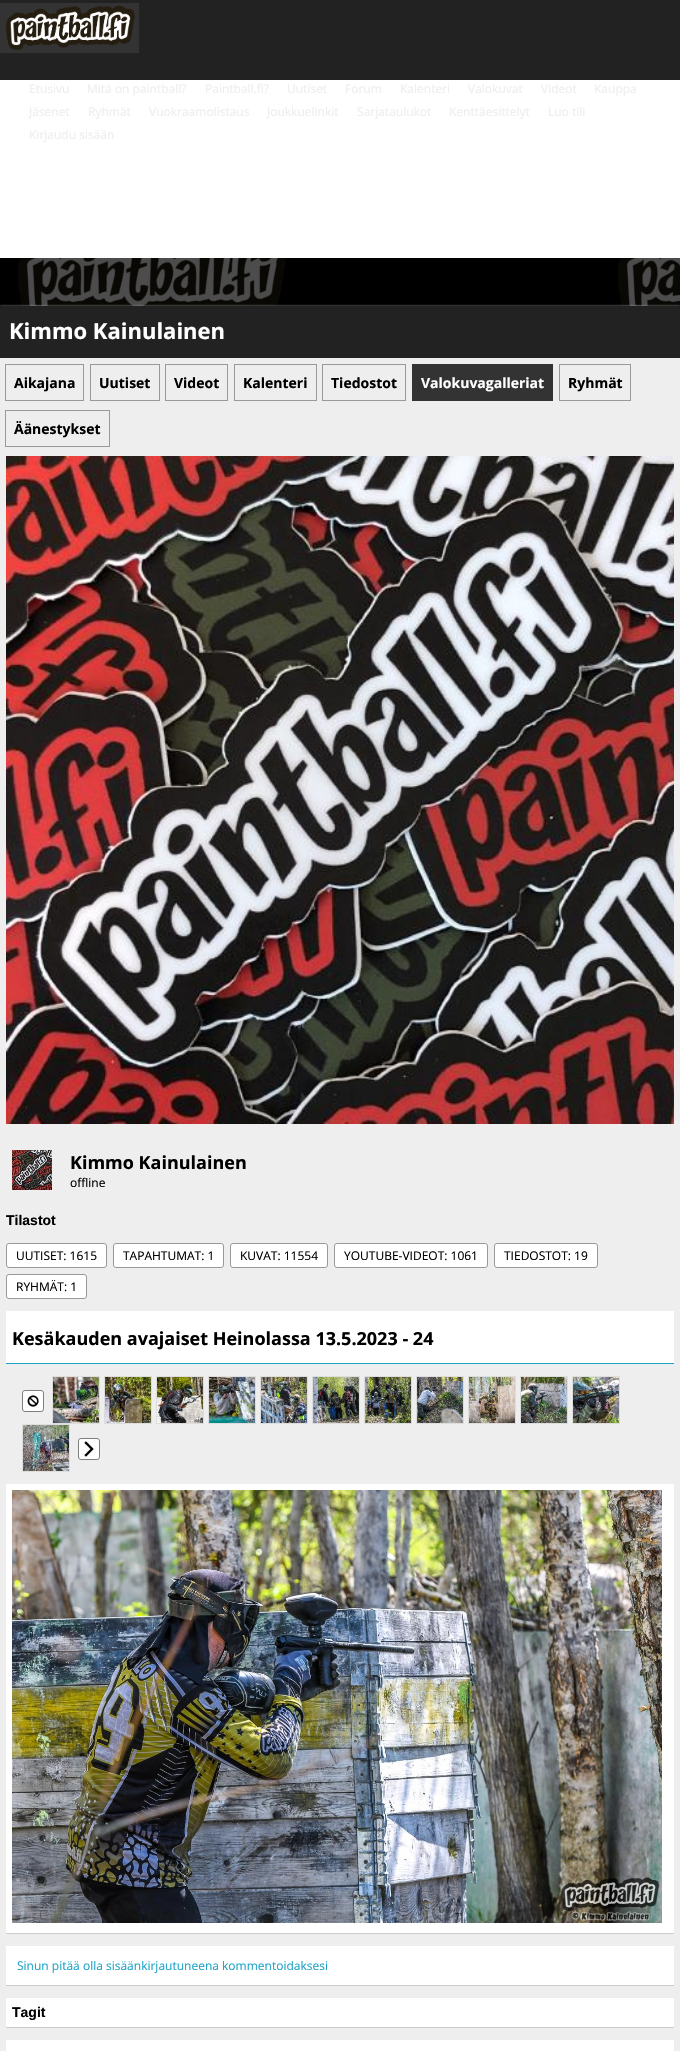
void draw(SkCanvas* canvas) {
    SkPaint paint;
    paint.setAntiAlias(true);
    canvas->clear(0xFFFFFFFF);
    paint.setColor(0xFF222222);
    canvas->drawRect(SkRect::MakeXYWH(0, 0, 680, 80), paint);
    paint.setColor(0xFF333333);
    canvas->drawRect(SkRect::MakeXYWH(0, 3, 139, 50), paint);
    canvas->drawImageRect(SkImages::DeferredFromEncodedData(SkData::MakeFromFileName("img1.png")), SkRect::MakeXYWH(5, 5, 130, 45), SkSamplingOptions());
    SkFont font1(fontMgr->matchFamilyStyle("Open Sans", SkFontStyle::Normal()), 12);
    font1.setSubpixel(true);
    paint.setColor(0xFFEEEEEE);
    canvas->drawString("Etusivu", 29, 93, font1, paint);
    canvas->drawString("Mitä on paintball?", 87, 93, font1, paint);
    canvas->drawString("Paintball.fi?", 205, 93, font1, paint);
    canvas->drawString("Uutiset", 287, 93, font1, paint);
    canvas->drawString("Forum", 345, 93, font1, paint);
    canvas->drawString("Kalenteri", 400, 93, font1, paint);
    canvas->drawString("Valokuvat", 468, 93, font1, paint);
    canvas->drawString("Videot", 541, 93, font1, paint);
    canvas->drawString("Kauppa", 594, 93, font1, paint);
    canvas->drawString("Jäsenet", 29, 116, font1, paint);
    canvas->drawString("Ryhmät", 88, 116, font1, paint);
    canvas->drawString("Vuokraamolistaus", 149, 116, font1, paint);
    canvas->drawString("Joukkuelinkit", 267, 116, font1, paint);
    canvas->drawString("Sarjataulukot", 357, 116, font1, paint);
    canvas->drawString("Kenttäesittelyt", 449, 116, font1, paint);
    canvas->drawString("Luo tili", 548, 116, font1, paint);
    canvas->drawString("Kirjaudu sisään", 29, 139, font1, paint);
    canvas->drawImageRect(SkImages::DeferredFromEncodedData(SkData::MakeFromFileName("img2.png")), SkRect::MakeXYWH(0, 258, 680, 48), SkSamplingOptions());
    paint.setColor(0xFF999999);
    paint.setMaskFilter(SkMaskFilter::MakeBlur(kNormal_SkBlurStyle, 1));
    canvas->drawRect(SkRect::MakeXYWH(0, 306, 680, 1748), paint);
    paint.setMaskFilter(nullptr);
    paint.setColor(0xFFEEEEEE);
    canvas->drawRect(SkRect::MakeXYWH(0, 358, 680, 1693), paint);
    paint.setColor(0xFF222222);
    canvas->drawRect(SkRect::MakeXYWH(0, 306, 680, 52), paint);
    SkFont font2(fontMgr->matchFamilyStyle("Open Sans", SkFontStyle::Bold()), 22);
    font2.setSubpixel(true);
    paint.setColor(0xFFFFFFFF);
    canvas->drawString("Kimmo Kainulainen", 9, 339, font2, paint);
    paint.setStyle(SkPaint::kStroke_Style);
    paint.setStrokeWidth(1);
    paint.setColor(0xFF999999);
    canvas->drawRect(SkRect::MakeXYWH(5.5f, 364.5f, 78, 36), paint);
    SkFont font3(fontMgr->matchFamilyStyle("Open Sans", SkFontStyle::Bold()), 14);
    font3.setSubpixel(true);
    paint.setStyle(SkPaint::kFill_Style);
    paint.setColor(0xFF000000);
    canvas->drawString("Aikajana", 14, 388, font3, paint);
    paint.setStyle(SkPaint::kStroke_Style);
    paint.setColor(0xFF999999);
    canvas->drawRect(SkRect::MakeXYWH(90.5f, 364.5f, 69, 36), paint);
    paint.setStyle(SkPaint::kFill_Style);
    paint.setColor(0xFF000000);
    canvas->drawString("Uutiset", 99, 388, font3, paint);
    paint.setStyle(SkPaint::kStroke_Style);
    paint.setColor(0xFF999999);
    canvas->drawRect(SkRect::MakeXYWH(165.5f, 364.5f, 62, 36), paint);
    paint.setStyle(SkPaint::kFill_Style);
    paint.setColor(0xFF000000);
    canvas->drawString("Videot", 174, 388, font3, paint);
    paint.setStyle(SkPaint::kStroke_Style);
    paint.setColor(0xFF999999);
    canvas->drawRect(SkRect::MakeXYWH(234.5f, 364.5f, 82, 36), paint);
    paint.setStyle(SkPaint::kFill_Style);
    paint.setColor(0xFF000000);
    canvas->drawString("Kalenteri", 243, 388, font3, paint);
    paint.setStyle(SkPaint::kStroke_Style);
    paint.setColor(0xFF999999);
    canvas->drawRect(SkRect::MakeXYWH(322.5f, 364.5f, 83, 36), paint);
    paint.setStyle(SkPaint::kFill_Style);
    paint.setColor(0xFF000000);
    canvas->drawString("Tiedostot", 331, 388, font3, paint);
    paint.setColor(0xFF333333);
    canvas->drawRect(SkRect::MakeXYWH(412, 364, 141, 37), paint);
    paint.setColor(0xFFFFFFFF);
    canvas->drawString("Valokuvagalleriat", 421, 388, font3, paint);
    paint.setStyle(SkPaint::kStroke_Style);
    paint.setColor(0xFF999999);
    canvas->drawRect(SkRect::MakeXYWH(559.5f, 364.5f, 71, 36), paint);
    paint.setStyle(SkPaint::kFill_Style);
    paint.setColor(0xFF000000);
    canvas->drawString("Ryhmät", 568, 388, font3, paint);
    paint.setStyle(SkPaint::kStroke_Style);
    paint.setColor(0xFF999999);
    canvas->drawRect(SkRect::MakeXYWH(5.5f, 410.5f, 104, 36), paint);
    paint.setStyle(SkPaint::kFill_Style);
    paint.setColor(0xFF000000);
    canvas->drawString("Äänestykset", 14, 434, font3, paint);
    canvas->drawImageRect(SkImages::DeferredFromEncodedData(SkData::MakeFromFileName("img3.png")), SkRect::MakeXYWH(6, 456, 668, 668), SkSamplingOptions());
    canvas->drawImageRect(SkImages::DeferredFromEncodedData(SkData::MakeFromFileName("img4.png")), SkRect::MakeXYWH(12, 1150, 40, 40), SkSamplingOptions());
    SkFont font4(fontMgr->matchFamilyStyle("Open Sans", SkFontStyle::Bold()), 18);
    font4.setSubpixel(true);
    canvas->drawString("Kimmo Kainulainen", 70, 1169, font4, paint);
    canvas->drawString("offline", 70, 1187, font1, paint);
    SkFont font5(fontMgr->matchFamilyStyle("Liberation Sans", SkFontStyle::Bold()), 14);
    font5.setSubpixel(true);
    canvas->drawString("Tilastot", 6, 1225, font5, paint);
    paint.setColor(0xFFFFFFFF);
    canvas->drawRoundRect(SkRect::MakeXYWH(6.5f, 1243.5f, 100, 24), 2.5f, 2.5f, paint);
    paint.setStyle(SkPaint::kStroke_Style);
    paint.setColor(0xFF999999);
    canvas->drawRoundRect(SkRect::MakeXYWH(6.5f, 1243.5f, 100, 24), 2.5f, 2.5f, paint);
    paint.setStyle(SkPaint::kFill_Style);
    paint.setColor(0xFF000000);
    canvas->drawString("UUTISET: 1615", 16, 1260, font1, paint);
    paint.setColor(0xFFFFFFFF);
    canvas->drawRoundRect(SkRect::MakeXYWH(113.5f, 1243.5f, 110, 24), 2.5f, 2.5f, paint);
    paint.setStyle(SkPaint::kStroke_Style);
    paint.setColor(0xFF999999);
    canvas->drawRoundRect(SkRect::MakeXYWH(113.5f, 1243.5f, 110, 24), 2.5f, 2.5f, paint);
    paint.setStyle(SkPaint::kFill_Style);
    paint.setColor(0xFF000000);
    canvas->drawString("TAPAHTUMAT: 1", 123, 1260, font1, paint);
    paint.setColor(0xFFFFFFFF);
    canvas->drawRoundRect(SkRect::MakeXYWH(230.5f, 1243.5f, 97, 24), 2.5f, 2.5f, paint);
    paint.setStyle(SkPaint::kStroke_Style);
    paint.setColor(0xFF999999);
    canvas->drawRoundRect(SkRect::MakeXYWH(230.5f, 1243.5f, 97, 24), 2.5f, 2.5f, paint);
    paint.setStyle(SkPaint::kFill_Style);
    paint.setColor(0xFF000000);
    canvas->drawString("KUVAT: 11554", 240, 1260, font1, paint);
    paint.setColor(0xFFFFFFFF);
    canvas->drawRoundRect(SkRect::MakeXYWH(334.5f, 1243.5f, 153, 24), 2.5f, 2.5f, paint);
    paint.setStyle(SkPaint::kStroke_Style);
    paint.setColor(0xFF999999);
    canvas->drawRoundRect(SkRect::MakeXYWH(334.5f, 1243.5f, 153, 24), 2.5f, 2.5f, paint);
    paint.setStyle(SkPaint::kFill_Style);
    paint.setColor(0xFF000000);
    canvas->drawString("YOUTUBE-VIDEOT: 1061", 344, 1260, font1, paint);
    paint.setColor(0xFFFFFFFF);
    canvas->drawRoundRect(SkRect::MakeXYWH(494.5f, 1243.5f, 103, 24), 2.5f, 2.5f, paint);
    paint.setStyle(SkPaint::kStroke_Style);
    paint.setColor(0xFF999999);
    canvas->drawRoundRect(SkRect::MakeXYWH(494.5f, 1243.5f, 103, 24), 2.5f, 2.5f, paint);
    paint.setStyle(SkPaint::kFill_Style);
    paint.setColor(0xFF000000);
    canvas->drawString("TIEDOSTOT: 19", 504, 1260, font1, paint);
    paint.setColor(0xFFFFFFFF);
    canvas->drawRoundRect(SkRect::MakeXYWH(6.5f, 1274.5f, 80, 24), 2.5f, 2.5f, paint);
    paint.setStyle(SkPaint::kStroke_Style);
    paint.setColor(0xFF999999);
    canvas->drawRoundRect(SkRect::MakeXYWH(6.5f, 1274.5f, 80, 24), 2.5f, 2.5f, paint);
    paint.setStyle(SkPaint::kFill_Style);
    paint.setColor(0xFF000000);
    canvas->drawString("RYHMÄT: 1", 16, 1291, font1, paint);
    paint.setColor(0xFFFFFFFF);
    canvas->drawRect(SkRect::MakeXYWH(6, 1311, 668, 52), paint);
    paint.setColor(0xFF1FA3C8);
    canvas->drawRect(SkRect::MakeXYWH(6, 1363, 668, 1), paint);
    paint.setColor(0xFF000000);
    canvas->drawString("Kesäkauden avajaiset Heinolassa 13.5.2023 - 24", 12, 1345, font4, paint);
    paint.setColor(0xFFFFFFFF);
    canvas->drawRoundRect(SkRect::MakeXYWH(22.5f, 1390.5f, 21, 21), 2.5f, 2.5f, paint);
    paint.setStyle(SkPaint::kStroke_Style);
    paint.setColor(0xFF7F7F7F);
    canvas->drawRoundRect(SkRect::MakeXYWH(22.5f, 1390.5f, 21, 21), 2.5f, 2.5f, paint);
    canvas->drawImageRect(SkImages::DeferredFromEncodedData(SkData::MakeFromFileName("img5.png")), SkRect::MakeXYWH(27, 1395, 12, 12), SkSamplingOptions());
    paint.setColor(0xFFDDDDDD);
    canvas->drawRect(SkRect::MakeXYWH(52.5f, 1376.5f, 47, 47), paint);
    canvas->drawImageRect(SkImages::DeferredFromEncodedData(SkData::MakeFromFileName("img6.png")), SkRect::MakeXYWH(53, 1377, 46, 46), SkSamplingOptions());
    canvas->drawRect(SkRect::MakeXYWH(104.5f, 1376.5f, 47, 47), paint);
    canvas->drawImageRect(SkImages::DeferredFromEncodedData(SkData::MakeFromFileName("img7.png")), SkRect::MakeXYWH(105, 1377, 46, 46), SkSamplingOptions());
    canvas->drawRect(SkRect::MakeXYWH(156.5f, 1376.5f, 47, 47), paint);
    canvas->drawImageRect(SkImages::DeferredFromEncodedData(SkData::MakeFromFileName("img8.png")), SkRect::MakeXYWH(157, 1377, 46, 46), SkSamplingOptions());
    canvas->drawRect(SkRect::MakeXYWH(208.5f, 1376.5f, 47, 47), paint);
    canvas->drawImageRect(SkImages::DeferredFromEncodedData(SkData::MakeFromFileName("img9.png")), SkRect::MakeXYWH(209, 1377, 46, 46), SkSamplingOptions());
    canvas->drawRect(SkRect::MakeXYWH(260.5f, 1376.5f, 47, 47), paint);
    canvas->drawImageRect(SkImages::DeferredFromEncodedData(SkData::MakeFromFileName("img10.png")), SkRect::MakeXYWH(261, 1377, 46, 46), SkSamplingOptions());
    canvas->drawRect(SkRect::MakeXYWH(312.5f, 1376.5f, 47, 47), paint);
    canvas->drawImageRect(SkImages::DeferredFromEncodedData(SkData::MakeFromFileName("img11.png")), SkRect::MakeXYWH(313, 1377, 46, 46), SkSamplingOptions());
    canvas->drawRect(SkRect::MakeXYWH(364.5f, 1376.5f, 47, 47), paint);
    canvas->drawImageRect(SkImages::DeferredFromEncodedData(SkData::MakeFromFileName("img12.png")), SkRect::MakeXYWH(365, 1377, 46, 46), SkSamplingOptions());
    canvas->drawRect(SkRect::MakeXYWH(416.5f, 1376.5f, 47, 47), paint);
    canvas->drawImageRect(SkImages::DeferredFromEncodedData(SkData::MakeFromFileName("img13.png")), SkRect::MakeXYWH(417, 1377, 46, 46), SkSamplingOptions());
    canvas->drawRect(SkRect::MakeXYWH(468.5f, 1376.5f, 47, 47), paint);
    canvas->drawImageRect(SkImages::DeferredFromEncodedData(SkData::MakeFromFileName("img14.png")), SkRect::MakeXYWH(469, 1377, 46, 46), SkSamplingOptions());
    canvas->drawRect(SkRect::MakeXYWH(520.5f, 1376.5f, 47, 47), paint);
    canvas->drawImageRect(SkImages::DeferredFromEncodedData(SkData::MakeFromFileName("img15.png")), SkRect::MakeXYWH(521, 1377, 46, 46), SkSamplingOptions());
    canvas->drawRect(SkRect::MakeXYWH(572.5f, 1376.5f, 47, 47), paint);
    canvas->drawImageRect(SkImages::DeferredFromEncodedData(SkData::MakeFromFileName("img16.png")), SkRect::MakeXYWH(573, 1377, 46, 46), SkSamplingOptions());
    canvas->drawRect(SkRect::MakeXYWH(22.5f, 1424.5f, 47, 47), paint);
    canvas->drawImageRect(SkImages::DeferredFromEncodedData(SkData::MakeFromFileName("img17.png")), SkRect::MakeXYWH(23, 1425, 46, 46), SkSamplingOptions());
    paint.setStyle(SkPaint::kFill_Style);
    paint.setColor(0xFFFFFFFF);
    canvas->drawRoundRect(SkRect::MakeXYWH(78.5f, 1438.5f, 21, 21), 2.5f, 2.5f, paint);
    paint.setStyle(SkPaint::kStroke_Style);
    paint.setColor(0xFF7F7F7F);
    canvas->drawRoundRect(SkRect::MakeXYWH(78.5f, 1438.5f, 21, 21), 2.5f, 2.5f, paint);
    canvas->drawImageRect(SkImages::DeferredFromEncodedData(SkData::MakeFromFileName("img18.png")), SkRect::MakeXYWH(84, 1441, 10, 16), SkSamplingOptions());
    paint.setStyle(SkPaint::kFill_Style);
    paint.setColor(0xFFFFFFFF);
    canvas->drawRect(SkRect::MakeXYWH(6, 1484, 668, 449), paint);
    paint.setColor(0xFFCCCCCC);
    canvas->drawRect(SkRect::MakeXYWH(6, 1933, 668, 1), paint);
    canvas->drawImageRect(SkImages::DeferredFromEncodedData(SkData::MakeFromFileName("img19.png")), SkRect::MakeXYWH(12, 1490, 650, 433), SkSamplingOptions());
    paint.setColor(0xFFFFFFFF);
    canvas->drawRect(SkRect::MakeXYWH(6, 1946, 668, 39), paint);
    paint.setColor(0xFFCCCCCC);
    canvas->drawRect(SkRect::MakeXYWH(6, 1985, 668, 1), paint);
    paint.setColor(0xFF1FA3C8);
    canvas->drawString("Sinun pitää olla sisäänkirjautuneena kommentoidaksesi", 17, 1970, font1, paint);
    paint.setColor(0xFFFFFFFF);
    canvas->drawRect(SkRect::MakeXYWH(6, 1998, 668, 29), paint);
    paint.setColor(0xFFCCCCCC);
    canvas->drawRect(SkRect::MakeXYWH(6, 2027, 668, 1), paint);
    paint.setColor(0xFF000000);
    canvas->drawString("Tagit", 12, 2017, font5, paint);
    paint.setColor(0xFFFFFFFF);
    canvas->drawRect(SkRect::MakeXYWH(6, 2040, 668, 11), paint);
}
